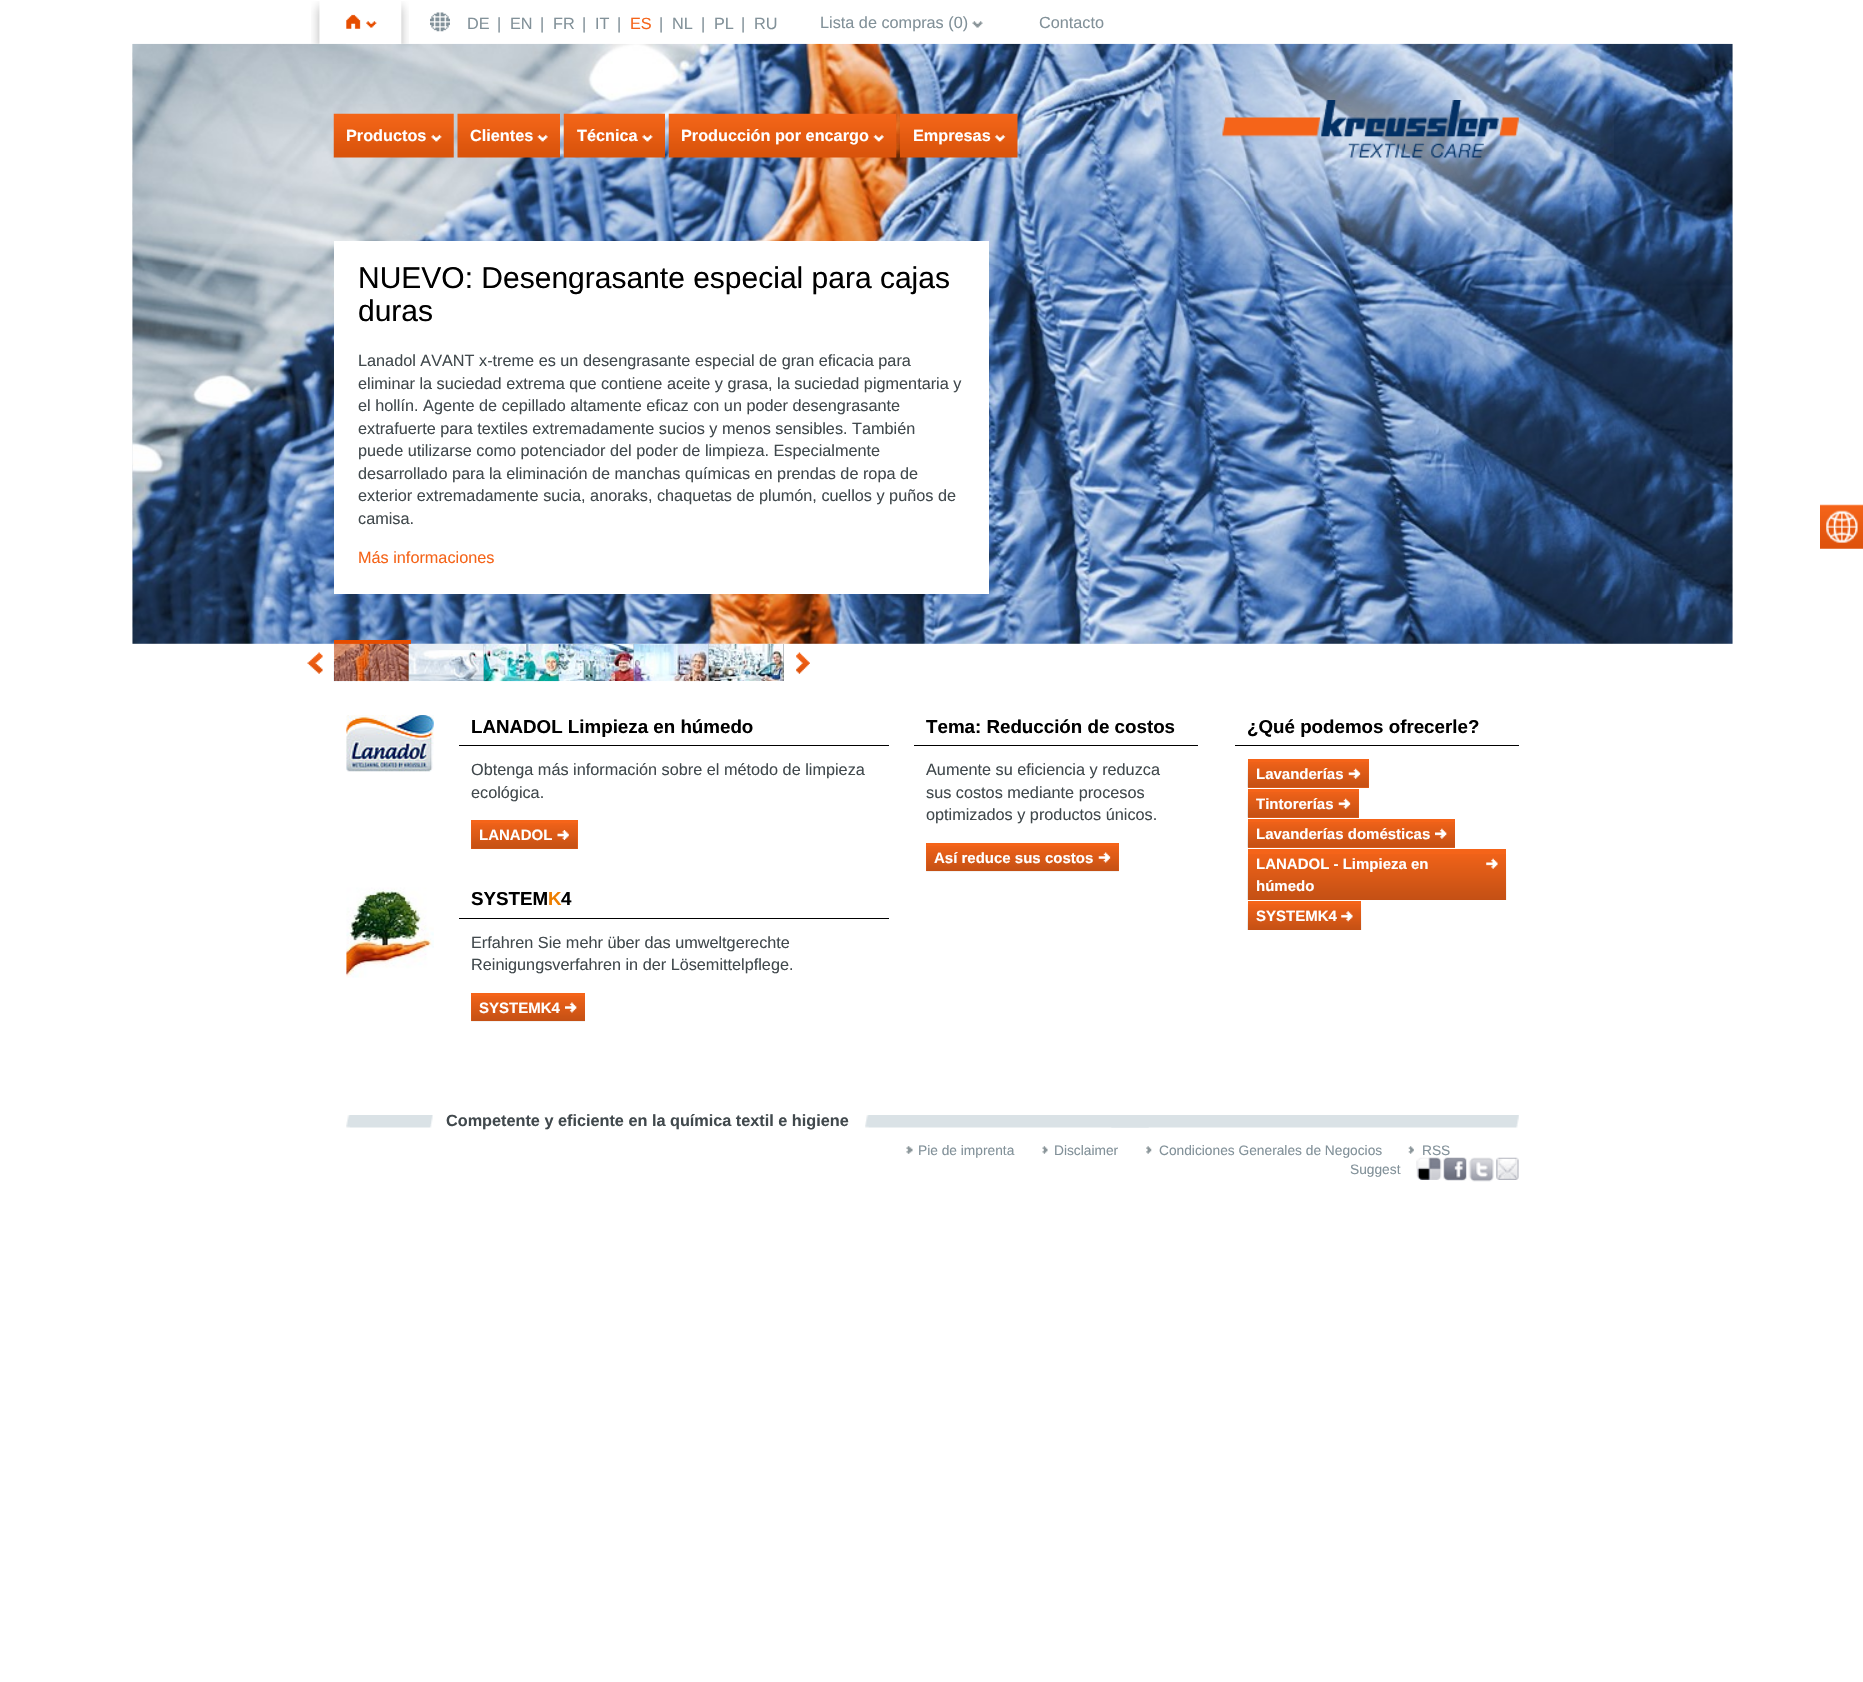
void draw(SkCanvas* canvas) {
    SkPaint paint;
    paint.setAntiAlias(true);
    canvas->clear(0xFFFFFFFF);
    canvas->drawImageRect(SkImages::DeferredFromEncodedData(SkData::MakeFromFileName("img12.png")), SkRect::MakeXYWH(132, 44, 1601, 600), SkSamplingOptions());
    canvas->drawImageRect(SkImages::DeferredFromEncodedData(SkData::MakeFromFileName("img13.png")), SkRect::MakeXYWH(132, 43, 1601, 601), SkSamplingOptions());
    canvas->drawImageRect(SkImages::DeferredFromEncodedData(SkData::MakeFromFileName("img1.png")), SkRect::MakeXYWH(311, 1, 9, 43), SkSamplingOptions());
    canvas->drawImageRect(SkImages::DeferredFromEncodedData(SkData::MakeFromFileName("img2.png")), SkRect::MakeXYWH(346, 1, 63, 43), SkSamplingOptions());
    canvas->drawImageRect(SkImages::DeferredFromEncodedData(SkData::MakeFromFileName("img3.png")), SkRect::MakeXYWH(430, 12, 20, 20), SkSamplingOptions());
    SkFont font1(fontMgr->matchFamilyStyle("Liberation Sans", SkFontStyle::Normal()), 16.25f);
    font1.setSubpixel(true);
    paint.setColor(0xFF829199);
    canvas->drawString("DE", 467, 29, font1, paint);
    canvas->drawString("|", 497, 29, font1, paint);
    canvas->drawString("EN", 510, 29, font1, paint);
    canvas->drawString("|", 540, 29, font1, paint);
    canvas->drawString("FR", 553, 29, font1, paint);
    canvas->drawString("|", 582, 29, font1, paint);
    canvas->drawString("IT", 595, 29, font1, paint);
    canvas->drawString("|", 617, 29, font1, paint);
    paint.setColor(0xFFF56419);
    canvas->drawString("ES", 630, 29, font1, paint);
    paint.setColor(0xFF829199);
    canvas->drawString("|", 659, 29, font1, paint);
    canvas->drawString("NL", 672, 29, font1, paint);
    canvas->drawString("|", 701, 29, font1, paint);
    canvas->drawString("PL", 714, 29, font1, paint);
    canvas->drawString("|", 741, 29, font1, paint);
    canvas->drawString("RU", 754, 29, font1, paint);
    canvas->drawImageRect(SkImages::DeferredFromEncodedData(SkData::MakeFromFileName("img4.png")), SkRect::MakeXYWH(972, 21, 11, 7), SkSamplingOptions());
    canvas->drawString("Lista de compras (0)", 820, 28, font1, paint);
    canvas->drawString("Contacto", 1039, 28, font1, paint);
    canvas->drawImageRect(SkImages::DeferredFromEncodedData(SkData::MakeFromFileName("img5.png")), SkRect::MakeXYWH(333, 113, 121, 45), SkSamplingOptions());
    SkFont font2(fontMgr->matchFamilyStyle("Liberation Sans", SkFontStyle::Bold()), 16.25f);
    font2.setSubpixel(true);
    paint.setColor(0xFFFFFFFF);
    canvas->drawString("Productos", 346, 141, font2, paint);
    canvas->drawImageRect(SkImages::DeferredFromEncodedData(SkData::MakeFromFileName("img6.png")), SkRect::MakeXYWH(457, 113, 103, 45), SkSamplingOptions());
    canvas->drawString("Clientes", 470, 141, font2, paint);
    canvas->drawImageRect(SkImages::DeferredFromEncodedData(SkData::MakeFromFileName("img7.png")), SkRect::MakeXYWH(563, 113, 102, 45), SkSamplingOptions());
    canvas->drawString("Técnica", 577, 141, font2, paint);
    canvas->drawImageRect(SkImages::DeferredFromEncodedData(SkData::MakeFromFileName("img8.png")), SkRect::MakeXYWH(668, 113, 229, 45), SkSamplingOptions());
    canvas->drawString("Producción por encargo", 681, 141, font2, paint);
    canvas->drawImageRect(SkImages::DeferredFromEncodedData(SkData::MakeFromFileName("img9.png")), SkRect::MakeXYWH(900, 113, 118, 45), SkSamplingOptions());
    canvas->drawString("Empresas", 913, 141, font2, paint);
    canvas->drawImageRect(SkImages::DeferredFromEncodedData(SkData::MakeFromFileName("img11.png")), SkRect::MakeXYWH(1122, 44, 492, 225), SkSamplingOptions());
    canvas->drawImageRect(SkImages::DeferredFromEncodedData(SkData::MakeFromFileName("img10.png")), SkRect::MakeXYWH(1222, 100, 297, 58), SkSamplingOptions());
    canvas->drawRect(SkRect::MakeXYWH(334, 241, 655, 353), paint);
    SkFont font3(fontMgr->matchFamilyStyle("Liberation Sans", SkFontStyle::Normal()), 30);
    font3.setSubpixel(true);
    paint.setColor(0xFF000000);
    canvas->drawString("NUEVO: Desengrasante especial para cajas", 358, 288, font3, paint);
    canvas->drawString("duras", 358, 321, font3, paint);
    paint.setColor(0xFF41494D);
    canvas->drawString("Lanadol AVANT x-treme es un desengrasante especial de gran eficacia para", 358, 366, font1, paint);
    canvas->drawString("eliminar la suciedad extrema que contiene aceite y grasa, la suciedad pigmentaria y", 358, 389, font1, paint);
    canvas->drawString("el hollín. Agente de cepillado altamente eficaz con un poder desengrasante", 358, 411, font1, paint);
    canvas->drawString("extrafuerte para textiles extremadamente sucios y menos sensibles. También", 358, 434, font1, paint);
    canvas->drawString("puede utilizarse como potenciador del poder de limpieza. Especialmente", 358, 456, font1, paint);
    canvas->drawString("desarrollado para la eliminación de manchas químicas en prendas de ropa de", 358, 479, font1, paint);
    canvas->drawString("exterior extremadamente sucia, anoraks, chaquetas de plumón, cuellos y puños de", 358, 501, font1, paint);
    canvas->drawString("camisa.", 358, 524, font1, paint);
    paint.setColor(0xFFF56419);
    canvas->drawString("Más informaciones", 358, 563, font1, paint);
    paint.setColor(0xFF6C7980);
    canvas->drawRect(SkRect::MakeXYWH(408, 644, 376, 37), paint);
    paint.setColor(0xFFE64D00);
    canvas->drawRect(SkRect::MakeXYWH(334, 640, 77, 4), paint);
    canvas->drawImageRect(SkImages::DeferredFromEncodedData(SkData::MakeFromFileName("img14.png")), SkRect::MakeXYWH(307, 652, 16, 22), SkSamplingOptions());
    canvas->drawImageRect(SkImages::DeferredFromEncodedData(SkData::MakeFromFileName("img15.png")), SkRect::MakeXYWH(333, 643, 76, 39), SkSamplingOptions());
    canvas->drawImageRect(SkImages::DeferredFromEncodedData(SkData::MakeFromFileName("img16.png")), SkRect::MakeXYWH(408, 643, 76, 38), SkSamplingOptions());
    canvas->drawImageRect(SkImages::DeferredFromEncodedData(SkData::MakeFromFileName("img17.png")), SkRect::MakeXYWH(483, 643, 76, 39), SkSamplingOptions());
    canvas->drawImageRect(SkImages::DeferredFromEncodedData(SkData::MakeFromFileName("img18.png")), SkRect::MakeXYWH(558, 643, 76, 38), SkSamplingOptions());
    canvas->drawImageRect(SkImages::DeferredFromEncodedData(SkData::MakeFromFileName("img19.png")), SkRect::MakeXYWH(633, 643, 76, 39), SkSamplingOptions());
    canvas->drawImageRect(SkImages::DeferredFromEncodedData(SkData::MakeFromFileName("img20.png")), SkRect::MakeXYWH(708, 643, 76, 38), SkSamplingOptions());
    canvas->drawImageRect(SkImages::DeferredFromEncodedData(SkData::MakeFromFileName("img21.png")), SkRect::MakeXYWH(796, 652, 14, 22), SkSamplingOptions());
    canvas->drawImageRect(SkImages::DeferredFromEncodedData(SkData::MakeFromFileName("img22.png")), SkRect::MakeXYWH(346, 715, 88, 57), SkSamplingOptions());
    paint.setColor(0xFF000000);
    canvas->drawRect(SkRect::MakeXYWH(459, 745, 430, 1), paint);
    SkFont font4(fontMgr->matchFamilyStyle("Liberation Sans", SkFontStyle::Bold()), 18.75f);
    font4.setSubpixel(true);
    canvas->drawString("LANADOL Limpieza en húmedo", 471, 733, font4, paint);
    paint.setColor(0xFF41494D);
    canvas->drawString("Obtenga más información sobre el método de limpieza", 471, 775, font1, paint);
    canvas->drawString("ecológica.", 471, 798, font1, paint);
    paint.setColor(0xFFF56419);
    canvas->drawRect(SkRect::MakeXYWH(471, 820, 107, 29), paint);
    canvas->drawImageRect(SkImages::DeferredFromEncodedData(SkData::MakeFromFileName("img23.png")), SkRect::MakeXYWH(471, 823, 107, 26), SkSamplingOptions());
    SkFont font5(fontMgr->matchFamilyStyle("Liberation Sans", SkFontStyle::Bold()), 15);
    font5.setSubpixel(true);
    paint.setColor(0xFFFFFFFF);
    canvas->drawString("LANADOL", 479, 840, font5, paint);
    canvas->drawImageRect(SkImages::DeferredFromEncodedData(SkData::MakeFromFileName("img24.png")), SkRect::MakeXYWH(346, 887, 88, 91), SkSamplingOptions());
    paint.setColor(0xFF000000);
    canvas->drawRect(SkRect::MakeXYWH(459, 918, 430, 1), paint);
    canvas->drawString("SYSTEM", 471, 905, font4, paint);
    paint.setColor(0xFFEE7F01);
    canvas->drawString("K", 548, 905, font4, paint);
    paint.setColor(0xFF000000);
    canvas->drawString("4", 561, 905, font4, paint);
    paint.setColor(0xFF41494D);
    canvas->drawString("Erfahren Sie mehr über das umweltgerechte", 471, 948, font1, paint);
    canvas->drawString("Reinigungsverfahren in der Lösemittelpflege.", 471, 970, font1, paint);
    paint.setColor(0xFFF56419);
    canvas->drawRect(SkRect::MakeXYWH(471, 993, 114, 28), paint);
    canvas->drawImageRect(SkImages::DeferredFromEncodedData(SkData::MakeFromFileName("img25.png")), SkRect::MakeXYWH(471, 996, 114, 26), SkSamplingOptions());
    paint.setColor(0xFFFFFFFF);
    canvas->drawString("SYSTEMK4", 479, 1013, font5, paint);
    paint.setColor(0xFF000000);
    canvas->drawRect(SkRect::MakeXYWH(914, 745, 284, 1), paint);
    canvas->drawString("Tema: Reducción de costos", 926, 733, font4, paint);
    paint.setColor(0xFF41494D);
    canvas->drawString("Aumente su eficiencia y reduzca", 926, 775, font1, paint);
    canvas->drawString("sus costos mediante procesos", 926, 798, font1, paint);
    canvas->drawString("optimizados y productos únicos.", 926, 820, font1, paint);
    paint.setColor(0xFFF56419);
    canvas->drawRect(SkRect::MakeXYWH(926, 843, 193, 28), paint);
    canvas->drawImageRect(SkImages::DeferredFromEncodedData(SkData::MakeFromFileName("img26.png")), SkRect::MakeXYWH(926, 846, 193, 26), SkSamplingOptions());
    paint.setColor(0xFFFFFFFF);
    canvas->drawString("Así reduce sus costos", 934, 863, font5, paint);
    paint.setColor(0xFF000000);
    canvas->drawRect(SkRect::MakeXYWH(1235, 745, 284, 1), paint);
    canvas->drawString("¿Qué podemos ofrecerle?", 1247, 733, font4, paint);
    paint.setColor(0xFFF56419);
    canvas->drawRect(SkRect::MakeXYWH(1248, 759, 121, 29), paint);
    canvas->drawImageRect(SkImages::DeferredFromEncodedData(SkData::MakeFromFileName("img27.png")), SkRect::MakeXYWH(1247, 762, 122, 26), SkSamplingOptions());
    paint.setColor(0xFFFFFFFF);
    canvas->drawString("Lavanderías", 1256, 779, font5, paint);
    paint.setColor(0xFFF56419);
    canvas->drawRect(SkRect::MakeXYWH(1248, 789, 111, 29), paint);
    canvas->drawImageRect(SkImages::DeferredFromEncodedData(SkData::MakeFromFileName("img28.png")), SkRect::MakeXYWH(1247, 792, 112, 26), SkSamplingOptions());
    paint.setColor(0xFFFFFFFF);
    canvas->drawString("Tintorerías", 1256, 809, font5, paint);
    paint.setColor(0xFFF56419);
    canvas->drawRect(SkRect::MakeXYWH(1248, 819, 207, 29), paint);
    canvas->drawImageRect(SkImages::DeferredFromEncodedData(SkData::MakeFromFileName("img29.png")), SkRect::MakeXYWH(1247, 822, 208, 26), SkSamplingOptions());
    paint.setColor(0xFFFFFFFF);
    canvas->drawString("Lavanderías domésticas", 1256, 839, font5, paint);
    paint.setColor(0xFFF56419);
    canvas->drawRect(SkRect::MakeXYWH(1248, 849, 258, 51), paint);
    canvas->drawImageRect(SkImages::DeferredFromEncodedData(SkData::MakeFromFileName("img30.png")), SkRect::MakeXYWH(1247, 854, 260, 46), SkSamplingOptions());
    paint.setColor(0xFFFFFFFF);
    canvas->drawString("LANADOL - Limpieza en", 1256, 869, font5, paint);
    canvas->drawString("húmedo", 1256, 891, font5, paint);
    paint.setColor(0xFFF56419);
    canvas->drawRect(SkRect::MakeXYWH(1248, 901, 113, 29), paint);
    canvas->drawImageRect(SkImages::DeferredFromEncodedData(SkData::MakeFromFileName("img31.png")), SkRect::MakeXYWH(1247, 904, 115, 26), SkSamplingOptions());
    paint.setColor(0xFFFFFFFF);
    canvas->drawString("SYSTEMK4", 1256, 921, font5, paint);
    canvas->drawImageRect(SkImages::DeferredFromEncodedData(SkData::MakeFromFileName("img32.png")), SkRect::MakeXYWH(346, 1115, 1173, 13), SkSamplingOptions());
    canvas->drawImageRect(SkImages::DeferredFromEncodedData(SkData::MakeFromFileName("img33.png")), SkRect::MakeXYWH(865, 1115, 284, 13), SkSamplingOptions());
    paint.setColor(0xFF41494D);
    canvas->drawString("Competente y eficiente en la química textil e higiene", 446, 1126, font2, paint);
    canvas->drawImageRect(SkImages::DeferredFromEncodedData(SkData::MakeFromFileName("img34.png")), SkRect::MakeXYWH(906, 1146, 7, 8), SkSamplingOptions());
    SkFont font6(fontMgr->matchFamilyStyle("Liberation Sans", SkFontStyle::Normal()), 13.75f);
    font6.setSubpixel(true);
    paint.setColor(0xFF829199);
    canvas->drawString("Pie de imprenta", 918, 1155, font6, paint);
    canvas->drawImageRect(SkImages::DeferredFromEncodedData(SkData::MakeFromFileName("img35.png")), SkRect::MakeXYWH(1042, 1146, 6, 8), SkSamplingOptions());
    canvas->drawString("Disclaimer", 1054, 1155, font6, paint);
    canvas->drawImageRect(SkImages::DeferredFromEncodedData(SkData::MakeFromFileName("img36.png")), SkRect::MakeXYWH(1146, 1146, 6, 8), SkSamplingOptions());
    canvas->drawString("Condiciones Generales de Negocios", 1159, 1155, font6, paint);
    canvas->drawImageRect(SkImages::DeferredFromEncodedData(SkData::MakeFromFileName("img37.png")), SkRect::MakeXYWH(1408, 1146, 6, 8), SkSamplingOptions());
    canvas->drawString("RSS", 1422, 1155, font6, paint);
    canvas->drawString("Suggest", 1350, 1174, font6, paint);
    canvas->drawImageRect(SkImages::DeferredFromEncodedData(SkData::MakeFromFileName("img38.png")), SkRect::MakeXYWH(1416, 1157, 26, 23), SkSamplingOptions());
    canvas->drawImageRect(SkImages::DeferredFromEncodedData(SkData::MakeFromFileName("img39.png")), SkRect::MakeXYWH(1443, 1157, 24, 24), SkSamplingOptions());
    canvas->drawImageRect(SkImages::DeferredFromEncodedData(SkData::MakeFromFileName("img40.png")), SkRect::MakeXYWH(1468, 1157, 26, 25), SkSamplingOptions());
    canvas->drawImageRect(SkImages::DeferredFromEncodedData(SkData::MakeFromFileName("img41.png")), SkRect::MakeXYWH(1496, 1157, 23, 23), SkSamplingOptions());
    canvas->drawImageRect(SkImages::DeferredFromEncodedData(SkData::MakeFromFileName("img42.png")), SkRect::MakeXYWH(1820, 504, 43, 45), SkSamplingOptions());
}
